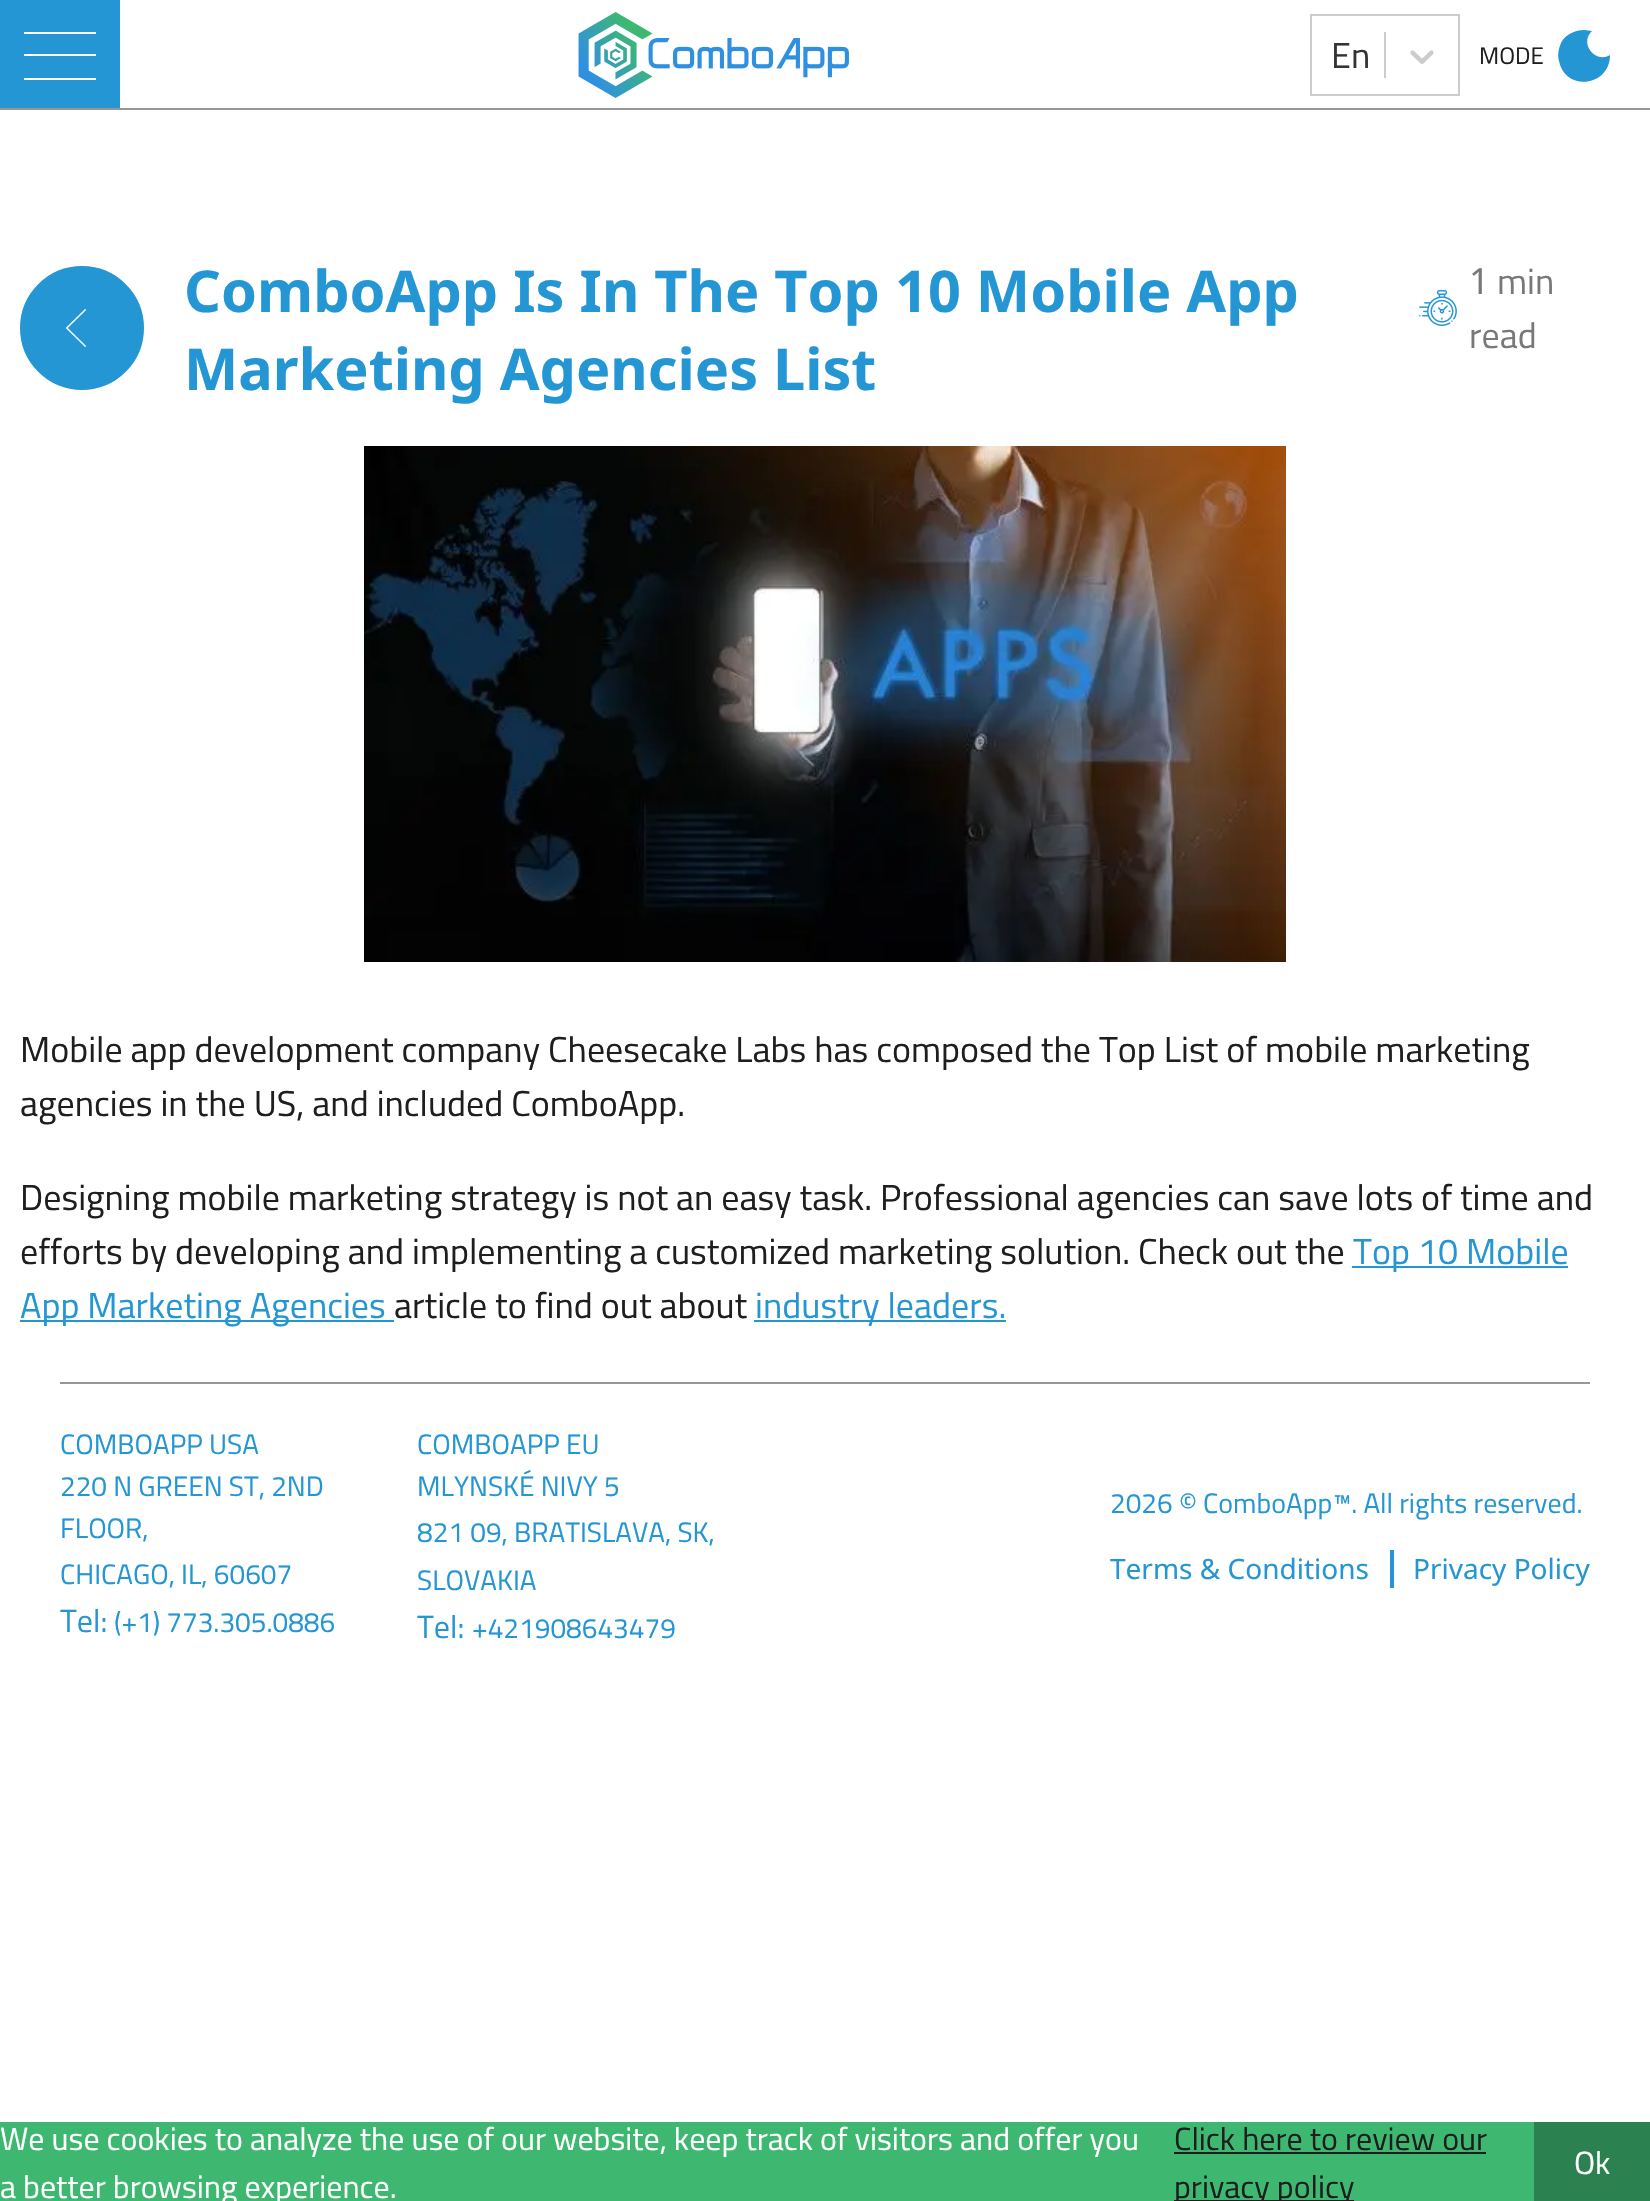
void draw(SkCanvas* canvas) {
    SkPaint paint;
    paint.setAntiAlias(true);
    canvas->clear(0xFFFFFFFF);
    paint.setColor(0xFF2396D3);
    canvas->drawRect(SkRect::MakeXYWH(0, 0, 120, 108), paint);
    paint.setColor(0xFFFFFFFF);
    canvas->drawRect(SkRect::MakeXYWH(24, 32, 72, 2), paint);
    canvas->drawRect(SkRect::MakeXYWH(24, 54, 72, 2), paint);
    canvas->drawRect(SkRect::MakeXYWH(24, 78, 72, 2), paint);
    canvas->drawImageRect(SkImages::DeferredFromEncodedData(SkData::MakeFromFileName("img1.png")), SkRect::MakeXYWH(578, 12, 271, 86), SkSamplingOptions());
    paint.setStyle(SkPaint::kStroke_Style);
    paint.setStrokeWidth(2);
    paint.setColor(0xFFCCCCCC);
    canvas->drawRect(SkRect::MakeXYWH(1311, 15, 148, 80), paint);
    SkFont font1(fontMgr->matchFamilyStyle("Titillium Web", SkFontStyle::Normal()), 36);
    font1.setSubpixel(true);
    paint.setStyle(SkPaint::kFill_Style);
    paint.setColor(0xFF333333);
    canvas->drawString("En", 1331, 68, font1, paint);
    paint.setColor(0xFFCCCCCC);
    canvas->drawRect(SkRect::MakeXYWH(1384, 32, 2, 46), paint);
    canvas->drawImageRect(SkImages::DeferredFromEncodedData(SkData::MakeFromFileName("img2.png")), SkRect::MakeXYWH(1410, 50, 24, 14), SkSamplingOptions());
    SkFont font2(fontMgr->matchFamilyStyle("Titillium Web", SkFontStyle::Normal()), 24);
    font2.setSubpixel(true);
    paint.setColor(0xFF1E1E1E);
    canvas->drawString("MODE", 1479, 64, font2, paint);
    paint.setColor(0xFF2396D3);
    canvas->drawPath(SkPathBuilder(SkPathFillType::kEvenOdd).moveTo(1584, 30).lineTo(1592, 31).cubicTo(1579, 43, 1595, 64, 1610, 55).cubicTo(1610, 87, 1565, 92, 1559, 61).cubicTo(1557, 54, 1559, 47, 1562, 41).cubicTo(1567, 34, 1575, 30, 1584, 30).close().detach(), paint);
    paint.setColor(0xFF979797);
    canvas->drawRect(SkRect::MakeXYWH(0, 108, 1650, 2), paint);
    paint.setColor(0xFF2396D3);
    canvas->drawCircle(82, 328, 61, paint);
    paint.setStyle(SkPaint::kStroke_Style);
    canvas->drawCircle(82, 328, 61, paint);
    canvas->drawImageRect(SkImages::DeferredFromEncodedData(SkData::MakeFromFileName("img3.png")), SkRect::MakeXYWH(66, 309, 20, 38), SkSamplingOptions());
    SkFont font3(fontMgr->matchFamilyStyle("Noto Sans", SkFontStyle::Bold()), 57.6f);
    font3.setSubpixel(true);
    paint.setStyle(SkPaint::kFill_Style);
    canvas->drawString("ComboApp Is In The Top 10 Mobile App", 184, 312, font3, paint);
    canvas->drawString("Marketing Agencies List", 184, 390, font3, paint);
    canvas->drawImageRect(SkImages::DeferredFromEncodedData(SkData::MakeFromFileName("img4.png")), SkRect::MakeXYWH(1419, 290, 38, 36), SkSamplingOptions());
    SkFont font4(fontMgr->matchFamilyStyle("Noto Sans", SkFontStyle::Normal()), 36);
    font4.setSubpixel(true);
    paint.setColor(0xFF787878);
    canvas->drawString("1", 1469, 294, font4, paint);
    canvas->drawString("min", 1497, 294, font1, paint);
    canvas->drawString("read", 1469, 348, font1, paint);
    canvas->drawImageRect(SkImages::DeferredFromEncodedData(SkData::MakeFromFileName("img5.png")), SkRect::MakeXYWH(364, 446, 922, 516), SkSamplingOptions());
    paint.setColor(0xFF1E1E1E);
    canvas->drawString("Mobile app development company Cheesecake Labs has composed the Top List of mobile marketing", 20, 1062, font1, paint);
    canvas->drawString("agencies in the US, and included ComboApp.", 20, 1116, font1, paint);
    canvas->drawString("Designing mobile marketing strategy is not an easy task. Professional agencies can save lots of time and", 20, 1210, font1, paint);
    canvas->drawString("efforts by developing and implementing a customized marketing solution. Check out the", 20, 1264, font1, paint);
    paint.setColor(0xFF2396D3);
    canvas->drawRect(SkRect::MakeXYWH(1352, 1266, 216, 2), paint);
    canvas->drawString("Top 10 Mobile", 1353, 1264, font1, paint);
    canvas->drawRect(SkRect::MakeXYWH(20, 1320, 374, 2), paint);
    canvas->drawString("App Marketing Agencies", 20, 1318, font1, paint);
    paint.setColor(0xFF1E1E1E);
    canvas->drawString("article to find out about", 394, 1318, font1, paint);
    paint.setColor(0xFF2396D3);
    canvas->drawRect(SkRect::MakeXYWH(754, 1320, 252, 2), paint);
    canvas->drawString("industry leaders.", 755, 1318, font1, paint);
    paint.setColor(0xFF979797);
    canvas->drawRect(SkRect::MakeXYWH(60, 1382, 1530, 2), paint);
    SkFont font5(fontMgr->matchFamilyStyle("Titillium Web", SkFontStyle::Normal()), 28);
    font5.setSubpixel(true);
    paint.setColor(0xFF2396D3);
    canvas->drawString("COMBOAPP USA", 60, 1454, font5, paint);
    canvas->drawString("220 N GREEN ST, 2ND", 60, 1496, font5, paint);
    canvas->drawString("FLOOR,", 60, 1538, font5, paint);
    canvas->drawString("CHICAGO, IL, 60607", 60, 1584, font5, paint);
    SkFont font6(fontMgr->matchFamilyStyle("Titillium Web", SkFontStyle::Normal()), 32);
    font6.setSubpixel(true);
    canvas->drawString("Tel:", 60, 1632, font6, paint);
    canvas->drawString("(+1) 773.305.0886", 114, 1632, font5, paint);
    canvas->drawString("COMBOAPP EU", 417, 1454, font5, paint);
    canvas->drawString("MLYNSKÉ NIVY 5", 417, 1496, font5, paint);
    canvas->drawString("821 09, BRATISLAVA, SK,", 417, 1542, font5, paint);
    canvas->drawString("SLOVAKIA", 417, 1590, font5, paint);
    canvas->drawString("Tel:", 417, 1638, font6, paint);
    canvas->drawString("+421908643479", 472, 1638, font5, paint);
    canvas->drawString("2026 © ComboApp™. All rights reserved.", 1110, 1513, font5, paint);
    SkFont font7(fontMgr->matchFamilyStyle("Noto Sans", SkFontStyle::Normal()), 28);
    font7.setSubpixel(true);
    canvas->drawString("Terms & Conditions", 1110, 1579, font7, paint);
    canvas->drawRect(SkRect::MakeXYWH(1390, 1550, 4, 38), paint);
    canvas->drawString("Privacy Policy", 1413, 1579, font7, paint);
    paint.setColor(0xFF3EB871);
    canvas->drawRect(SkRect::MakeXYWH(0, 2122, 1534, 79), paint);
    paint.setColor(0xFFFFFFFF);
    canvas->drawString("We use cookies to analyze the use of our website, keep track of visitors and offer you", 0, 2150, font6, paint);
    canvas->drawString("a better browsing experience.", 0, 2198, font6, paint);
    paint.setColor(0xFF1E1E1E);
    canvas->drawString("Click here to review our", 1174, 2150, font6, paint);
    canvas->drawRect(SkRect::MakeXYWH(1174, 2152, 312, 2), paint);
    canvas->drawRect(SkRect::MakeXYWH(1174, 2200, 180, 1), paint);
    canvas->drawString("privacy policy", 1174, 2198, font6, paint);
    paint.setColor(0xFF2B814F);
    canvas->drawRect(SkRect::MakeXYWH(1534, 2122, 116, 79), paint);
    paint.setColor(0xFFFFFFFF);
    canvas->drawString("Ok", 1574, 2174, font6, paint);
}
